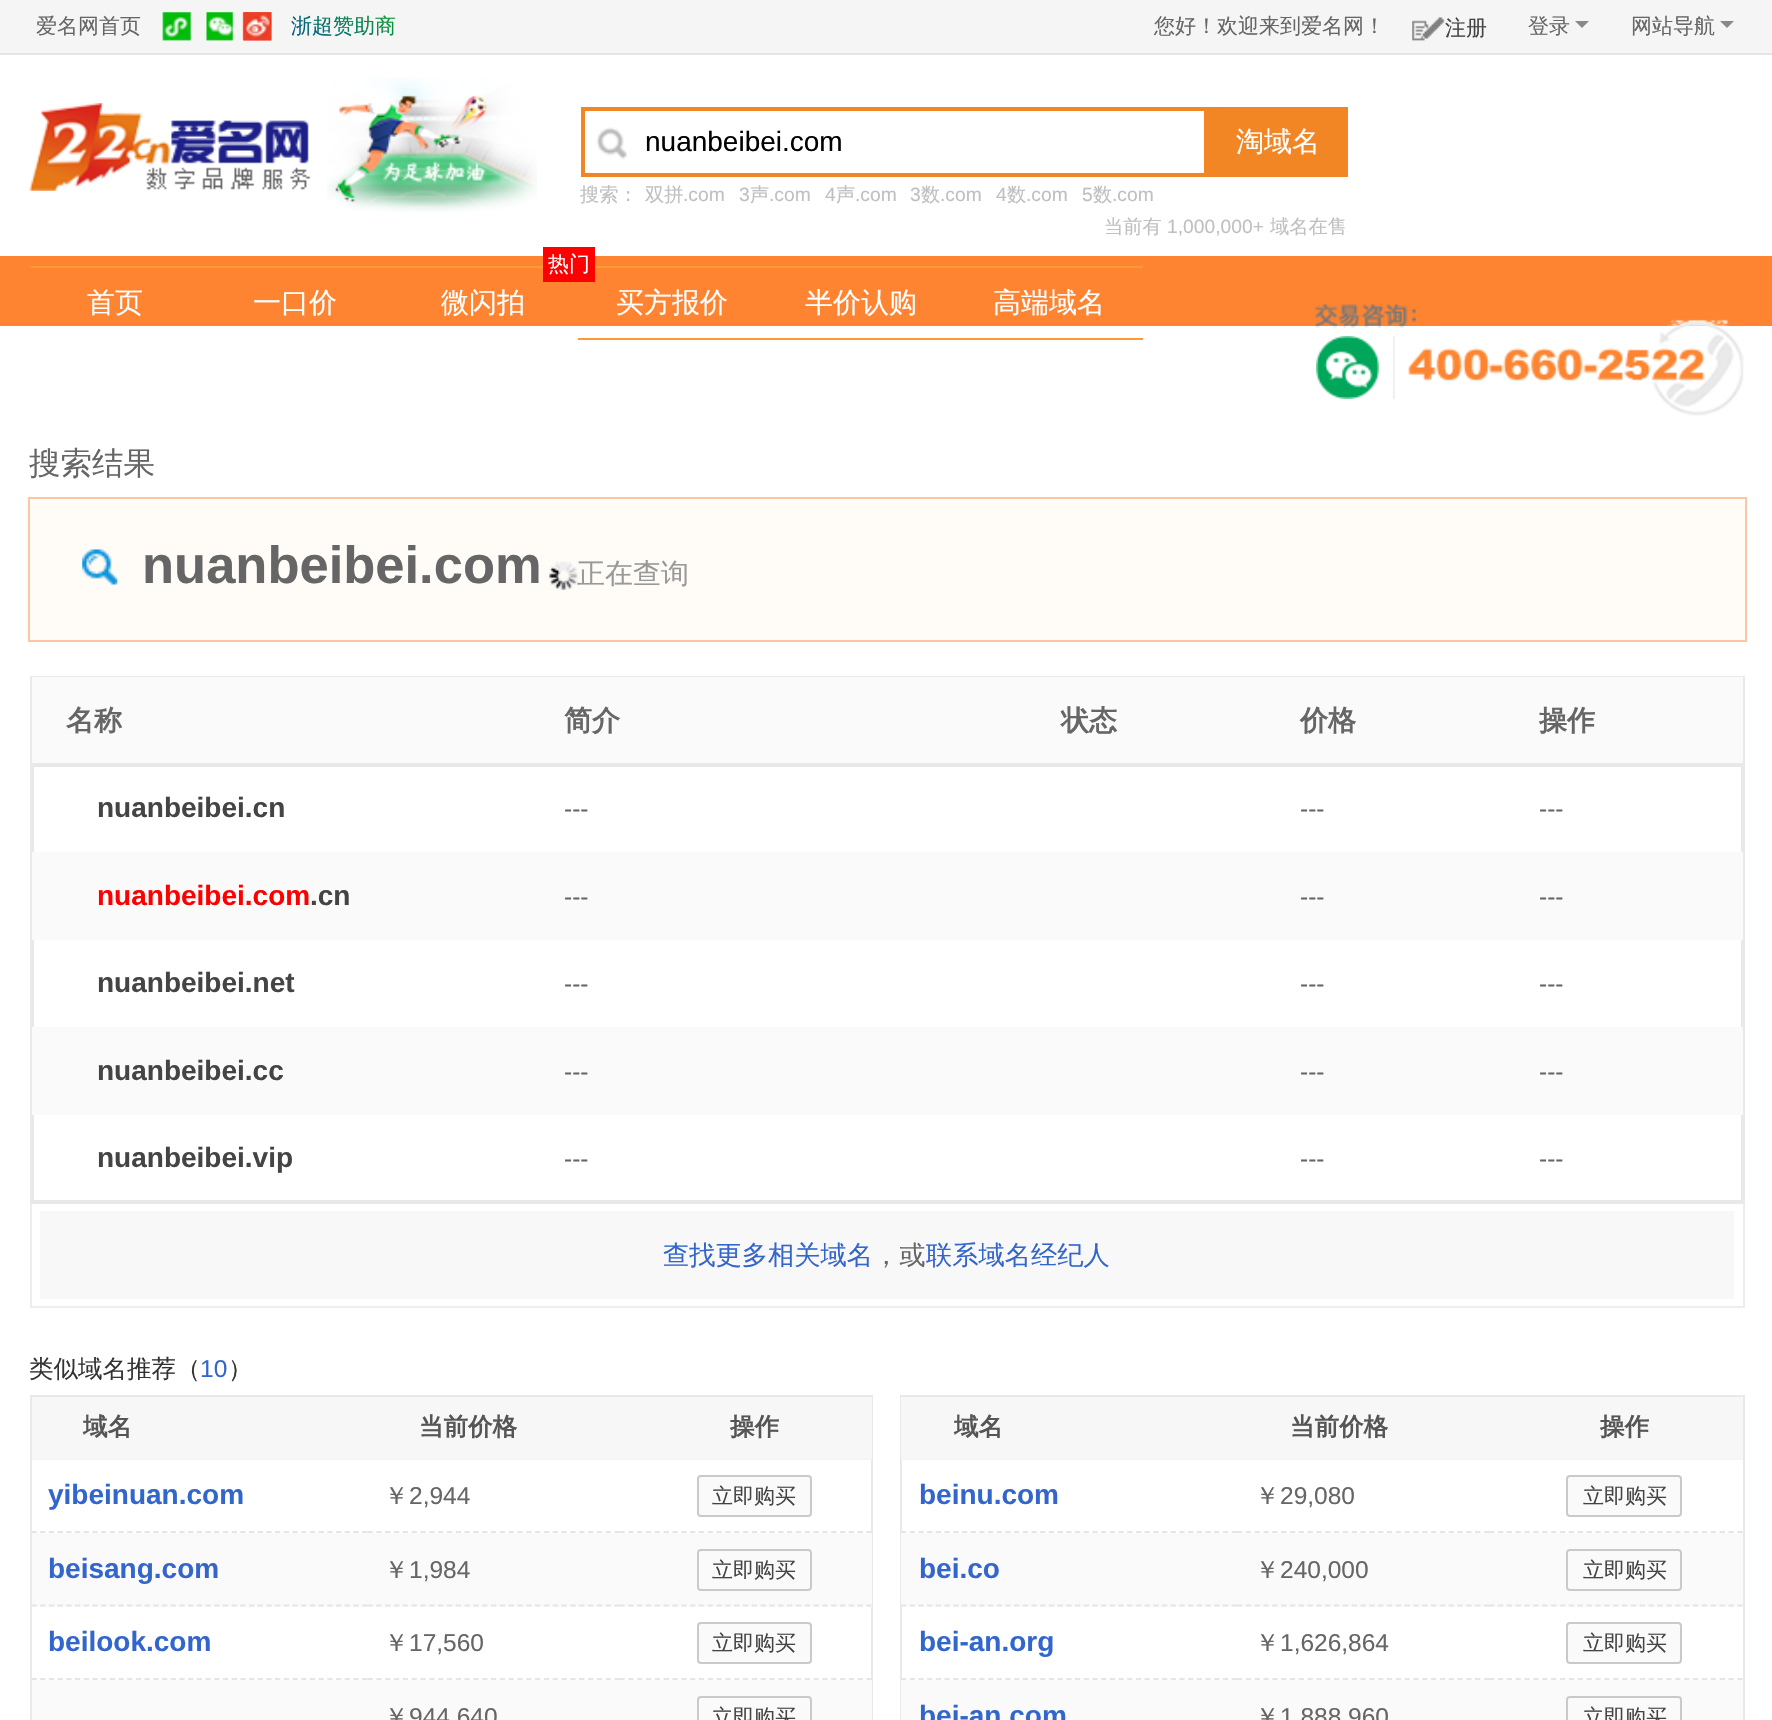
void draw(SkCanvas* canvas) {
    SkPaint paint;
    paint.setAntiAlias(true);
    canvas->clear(0xFFFFFFFF);
    paint.setColor(0xFFF5F5F5);
    canvas->drawRect(SkRect::MakeXYWH(0, 0, 1772, 53), paint);
    paint.setColor(0xFFE5E5E5);
    canvas->drawRect(SkRect::MakeXYWH(0, 53, 1772, 2), paint);
    SkFont font1(fontMgr->matchFamilyStyle("WenQuanYi Zen Hei", SkFontStyle(500, SkFontStyle::kNormal_Width, SkFontStyle::kUpright_Slant)), 21);
    font1.setSubpixel(true);
    paint.setColor(0xFF666666);
    canvas->drawString("爱名网首页", 36, 33, font1, paint);
    canvas->drawImageRect(SkImages::DeferredFromEncodedData(SkData::MakeFromFileName("img1.png")), SkRect::MakeXYWH(162, 12, 30, 29), SkSamplingOptions());
    canvas->drawImageRect(SkImages::DeferredFromEncodedData(SkData::MakeFromFileName("img2.png")), SkRect::MakeXYWH(206, 12, 27, 29), SkSamplingOptions());
    canvas->drawImageRect(SkImages::DeferredFromEncodedData(SkData::MakeFromFileName("img3.png")), SkRect::MakeXYWH(242, 12, 30, 29), SkSamplingOptions());
    canvas->drawImageRect(SkImages::DeferredFromEncodedData(SkData::MakeFromFileName("img4.png")), SkRect::MakeXYWH(242, 12, 30, 29), SkSamplingOptions());
    {
        const SkColor colors[] = {0xFF03558F, 0xFF0D9F30};
        const float stops[] = {0, 1};
        const SkPoint ends[] = {{323, 59}, {365, -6.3f}};
        paint.setShader(SkGradientShader::MakeLinear(ends, colors, stops, 2, SkTileMode::kClamp));
        paint.setAlpha(255);
    }
    canvas->drawString("浙超赞助商", 291, 33, font1, paint);
    paint.setShader(nullptr);
    paint.setColor(0xFF666666);
    canvas->drawString("您好！欢迎来到爱名网！", 1154, 33, font1, paint);
    canvas->drawImageRect(SkImages::DeferredFromEncodedData(SkData::MakeFromFileName("img5.png")), SkRect::MakeXYWH(1412, 17, 33, 24), SkSamplingOptions());
    paint.setColor(0xFF444444);
    canvas->drawString("注册", 1445, 35, font1, paint);
    paint.setColor(0xFF666666);
    canvas->drawString("登录", 1528, 33, font1, paint);
    paint.setColor(0xFF898989);
    canvas->drawPath(SkPathBuilder().moveTo(1575, 21).lineTo(1589, 21).lineTo(1582, 28).close().detach(), paint);
    paint.setColor(0xFF666666);
    canvas->drawString("网站导航", 1631, 33, font1, paint);
    paint.setColor(0xFF898989);
    canvas->drawPath(SkPathBuilder().moveTo(1720, 21).lineTo(1734, 21).lineTo(1727, 28).close().detach(), paint);
    canvas->drawImageRect(SkImages::DeferredFromEncodedData(SkData::MakeFromFileName("img6.png")), SkRect::MakeXYWH(29, 103, 282, 88), SkSamplingOptions());
    canvas->drawImageRect(SkImages::DeferredFromEncodedData(SkData::MakeFromFileName("img7.png")), SkRect::MakeXYWH(327, 77, 210, 135), SkSamplingOptions());
    canvas->drawImageRect(SkImages::DeferredFromEncodedData(SkData::MakeFromFileName("img8.png")), SkRect::MakeXYWH(596, 127, 31, 33), SkSamplingOptions());
    paint.setStyle(SkPaint::kStroke_Style);
    paint.setStrokeWidth(4);
    paint.setColor(0xFFF28625);
    canvas->drawRect(SkRect::MakeXYWH(583, 109, 623, 66), paint);
    SkFont font2(fontMgr->matchFamilyStyle("Liberation Sans", SkFontStyle::Normal()), 28);
    font2.setSubpixel(true);
    paint.setStyle(SkPaint::kFill_Style);
    paint.setColor(0xFF000000);
    canvas->drawString("nuanbeibei.com", 645, 151, font2, paint);
    paint.setColor(0xFFF28625);
    canvas->drawRect(SkRect::MakeXYWH(1208, 107, 140, 70), paint);
    SkFont font3(fontMgr->matchFamilyStyle("WenQuanYi Zen Hei", SkFontStyle(500, SkFontStyle::kNormal_Width, SkFontStyle::kUpright_Slant)), 28);
    font3.setSubpixel(true);
    paint.setColor(0xFFFFFFFF);
    canvas->drawString("淘域名", 1236, 151, font3, paint);
    SkFont font4(fontMgr->matchFamilyStyle("WenQuanYi Zen Hei", SkFontStyle(500, SkFontStyle::kNormal_Width, SkFontStyle::kUpright_Slant)), 19.25f);
    font4.setSubpixel(true);
    paint.setColor(0xFFC0C0C0);
    canvas->drawString("搜索：", 580, 201, font4, paint);
    canvas->drawString("双拼", 645, 201, font4, paint);
    SkFont font5(fontMgr->matchFamilyStyle("Liberation Sans", SkFontStyle::Normal()), 19.25f);
    font5.setSubpixel(true);
    canvas->drawString(".com", 683, 201, font5, paint);
    canvas->drawString("3", 739, 201, font5, paint);
    canvas->drawString("声", 750, 201, font4, paint);
    canvas->drawString(".com", 769, 201, font5, paint);
    canvas->drawString("4", 825, 201, font5, paint);
    canvas->drawString("声", 836, 201, font4, paint);
    canvas->drawString(".com", 855, 201, font5, paint);
    canvas->drawString("3", 910, 201, font5, paint);
    canvas->drawString("数", 921, 201, font4, paint);
    canvas->drawString(".com", 940, 201, font5, paint);
    canvas->drawString("4", 996, 201, font5, paint);
    canvas->drawString("数", 1007, 201, font4, paint);
    canvas->drawString(".com", 1026, 201, font5, paint);
    canvas->drawString("5", 1082, 201, font5, paint);
    canvas->drawString("数", 1093, 201, font4, paint);
    canvas->drawString(".com", 1112, 201, font5, paint);
    canvas->drawString("当前有", 1104, 233, font4, paint);
    canvas->drawString("1,000,000+", 1167, 233, font5, paint);
    canvas->drawString("域名在售", 1270, 233, font4, paint);
    paint.setColor(0xFFFE8431);
    canvas->drawRect(SkRect::MakeXYWH(0, 256, 1772, 70), paint);
    canvas->drawImageRect(SkImages::DeferredFromEncodedData(SkData::MakeFromFileName("img9.png")), SkRect::MakeXYWH(1314, 304, 430, 112), SkSamplingOptions());
    canvas->drawImageRect(SkImages::DeferredFromEncodedData(SkData::MakeFromFileName("img10.png")), SkRect::MakeXYWH(1316, 336, 63, 63), SkSamplingOptions());
    paint.setColor(0xFFFF9933);
    canvas->drawRect(SkRect::MakeXYWH(30, 266, 513, 2), paint);
    paint.setColor(0xFFFFFFFF);
    canvas->drawString("首页", 87, 312, font3, paint);
    canvas->drawString("一口价", 253, 312, font3, paint);
    paint.setColor(0xFFFF0000);
    canvas->drawRect(SkRect::MakeXYWH(543, 247, 52, 35), paint);
    paint.setColor(0xFFFFFFFF);
    canvas->drawString("热门", 548, 271, font1, paint);
    canvas->drawString("微闪拍", 441, 312, font3, paint);
    canvas->drawString("买方报价", 616, 312, font3, paint);
    paint.setColor(0xFFFF9933);
    canvas->drawRect(SkRect::MakeXYWH(595, 266, 548, 2), paint);
    paint.setColor(0xFFFFFFFF);
    canvas->drawString("半价认购", 805, 312, font3, paint);
    canvas->drawString("高端域名", 993, 312, font3, paint);
    paint.setColor(0xFFFF9933);
    canvas->drawRect(SkRect::MakeXYWH(578, 338, 565, 2), paint);
    SkFont font6(fontMgr->matchFamilyStyle("WenQuanYi Zen Hei", SkFontStyle(500, SkFontStyle::kNormal_Width, SkFontStyle::kUpright_Slant)), 31.5f);
    font6.setSubpixel(true);
    paint.setColor(0xFF666666);
    canvas->drawString("搜索结果", 29, 474, font6, paint);
    paint.setColor(0xFFFFFBF7);
    canvas->drawRect(SkRect::MakeXYWH(30, 499, 1715, 141), paint);
    canvas->drawImageRect(SkImages::DeferredFromEncodedData(SkData::MakeFromFileName("img11.png")), SkRect::MakeXYWH(82, 549, 36, 36), SkSamplingOptions());
    canvas->drawImageRect(SkImages::DeferredFromEncodedData(SkData::MakeFromFileName("img12.png")), SkRect::MakeXYWH(549, 561, 29, 29), SkSamplingOptions());
    paint.setStyle(SkPaint::kStroke_Style);
    paint.setStrokeWidth(2);
    paint.setColor(0xFFFDC5A1);
    canvas->drawRect(SkRect::MakeXYWH(29, 498, 1717, 143), paint);
    SkFont font7(fontMgr->matchFamilyStyle("Liberation Sans", SkFontStyle::Bold()), 52.5f);
    font7.setSubpixel(true);
    paint.setStyle(SkPaint::kFill_Style);
    paint.setColor(0xFF666666);
    canvas->drawString("nuanbeibei.com", 142, 583, font7, paint);
    paint.setColor(0xFF999999);
    canvas->drawString("正在查询", 577, 583, font3, paint);
    paint.setStyle(SkPaint::kStroke_Style);
    paint.setColor(0xFFE9E9E9);
    canvas->drawRect(SkRect::MakeXYWH(31, 677, 1713, 526), paint);
    paint.setStyle(SkPaint::kFill_Style);
    paint.setColor(0xFFFAFAFA);
    canvas->drawRect(SkRect::MakeXYWH(32, 677, 1711, 86), paint);
    paint.setColor(0xFFE9E9E9);
    canvas->drawRect(SkRect::MakeXYWH(32, 763, 1711, 2), paint);
    SkFont font8(fontMgr->matchFamilyStyle("WenQuanYi Zen Hei", SkFontStyle::Bold()), 28);
    font8.setSubpixel(true);
    paint.setColor(0xFF666666);
    canvas->drawString("名称", 66, 730, font8, paint);
    canvas->drawString("简介", 564, 730, font8, paint);
    canvas->drawString("状态", 1061, 730, font8, paint);
    canvas->drawString("价格", 1300, 730, font8, paint);
    canvas->drawString("操作", 1539, 730, font8, paint);
    paint.setStyle(SkPaint::kStroke_Style);
    paint.setColor(0xFFE8E8E8);
    canvas->drawRect(SkRect::MakeXYWH(33, 766, 1709, 435), paint);
    SkFont font9(fontMgr->matchFamilyStyle("Liberation Sans", SkFontStyle::Bold()), 28);
    font9.setSubpixel(true);
    paint.setStyle(SkPaint::kFill_Style);
    paint.setColor(0xFF444444);
    canvas->drawString("nuanbeibei.cn", 97, 817, font9, paint);
    SkFont font10(fontMgr->matchFamilyStyle("Liberation Sans", SkFontStyle::Normal()), 24.5f);
    font10.setSubpixel(true);
    paint.setColor(0xFF666666);
    canvas->drawString("---", 564, 817, font10, paint);
    canvas->drawString("---", 1300, 817, font10, paint);
    canvas->drawString("---", 1539, 817, font10, paint);
    paint.setColor(0xFFFAFAFA);
    canvas->drawRect(SkRect::MakeXYWH(32, 852, 1711, 88), paint);
    paint.setColor(0xFFFF0000);
    canvas->drawString("nuanbeibei.com", 97, 905, font9, paint);
    paint.setColor(0xFF444444);
    canvas->drawString(".cn", 310, 905, font9, paint);
    paint.setColor(0xFF666666);
    canvas->drawString("---", 564, 905, font10, paint);
    canvas->drawString("---", 1300, 905, font10, paint);
    canvas->drawString("---", 1539, 905, font10, paint);
    paint.setColor(0xFF444444);
    canvas->drawString("nuanbeibei.net", 97, 992, font9, paint);
    paint.setColor(0xFF666666);
    canvas->drawString("---", 564, 992, font10, paint);
    canvas->drawString("---", 1300, 992, font10, paint);
    canvas->drawString("---", 1539, 992, font10, paint);
    paint.setColor(0xFFFAFAFA);
    canvas->drawRect(SkRect::MakeXYWH(32, 1027, 1711, 88), paint);
    paint.setColor(0xFF444444);
    canvas->drawString("nuanbeibei.cc", 97, 1080, font9, paint);
    paint.setColor(0xFF666666);
    canvas->drawString("---", 564, 1080, font10, paint);
    canvas->drawString("---", 1300, 1080, font10, paint);
    canvas->drawString("---", 1539, 1080, font10, paint);
    paint.setColor(0xFF444444);
    canvas->drawString("nuanbeibei.vip", 97, 1167, font9, paint);
    paint.setColor(0xFF666666);
    canvas->drawString("---", 564, 1167, font10, paint);
    canvas->drawString("---", 1300, 1167, font10, paint);
    canvas->drawString("---", 1539, 1167, font10, paint);
    paint.setColor(0xFFEDEDED);
    canvas->drawRect(SkRect::MakeXYWH(1743, 1204, 2, 103), paint);
    canvas->drawRect(SkRect::MakeXYWH(30, 1306, 1715, 2), paint);
    canvas->drawRect(SkRect::MakeXYWH(30, 1204, 2, 103), paint);
    paint.setColor(0xFFF8F8F8);
    canvas->drawRect(SkRect::MakeXYWH(40, 1211, 1694, 88), paint);
    SkFont font11(fontMgr->matchFamilyStyle("WenQuanYi Zen Hei", SkFontStyle(500, SkFontStyle::kNormal_Width, SkFontStyle::kUpright_Slant)), 26.25f);
    font11.setSubpixel(true);
    paint.setColor(0xFF3366CC);
    canvas->drawString("查找更多相关域名", 663, 1264, font11, paint);
    paint.setColor(0xFF666666);
    canvas->drawString("，或", 873, 1264, font11, paint);
    paint.setColor(0xFF3366CC);
    canvas->drawString("联系域名经纪人", 926, 1264, font11, paint);
    SkFont font12(fontMgr->matchFamilyStyle("WenQuanYi Zen Hei", SkFontStyle(500, SkFontStyle::kNormal_Width, SkFontStyle::kUpright_Slant)), 24.5f);
    font12.setSubpixel(true);
    paint.setColor(0xFF333333);
    canvas->drawString("类似域名推荐（", 29, 1377, font12, paint);
    paint.setColor(0xFF3366CC);
    canvas->drawString("10", 200, 1377, font10, paint);
    paint.setColor(0xFF333333);
    canvas->drawString("）", 228, 1377, font12, paint);
    paint.setStyle(SkPaint::kStroke_Style);
    paint.setColor(0xFFE9E9E9);
    canvas->drawRect(SkRect::MakeXYWH(31, 1396, 841, 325), paint);
    paint.setStyle(SkPaint::kFill_Style);
    paint.setColor(0xFFF7F7F7);
    canvas->drawRect(SkRect::MakeXYWH(32, 1397, 840, 61), paint);
    paint.setColor(0xFFF5F5F5);
    canvas->drawRect(SkRect::MakeXYWH(32, 1458, 840, 2), paint);
    SkFont font13(fontMgr->matchFamilyStyle("WenQuanYi Zen Hei", SkFontStyle::Bold()), 24.5f);
    font13.setSubpixel(true);
    paint.setColor(0xFF555555);
    canvas->drawString("域名", 83, 1435, font13, paint);
    canvas->drawString("当前价格", 419, 1435, font13, paint);
    canvas->drawString("操作", 730, 1435, font13, paint);
    paint.setStyle(SkPaint::kStroke_Style);
    paint.setStrokeWidth(1.8f);
    paint.setColor(0xFFE5E5E5);
    paint.setPathEffect(SkDashPathEffect::Make({{5.25f, 3.45f}}, 0));
    canvas->drawPath(SkPathBuilder().moveTo(31.5f, 1532).lineTo(367.5f, 1532).detach(), paint);
    paint.setPathEffect(nullptr);
    paint.setStyle(SkPaint::kFill_Style);
    paint.setColor(0xFF3366CC);
    canvas->drawString("yibeinuan.com", 48, 1504, font9, paint);
    paint.setStyle(SkPaint::kStroke_Style);
    paint.setColor(0xFFE5E5E5);
    paint.setPathEffect(SkDashPathEffect::Make({{5.25f, 3.57f}}, 0));
    canvas->drawPath(SkPathBuilder().moveTo(367.5f, 1532).lineTo(619.5f, 1532).detach(), paint);
    paint.setPathEffect(nullptr);
    paint.setStyle(SkPaint::kFill_Style);
    paint.setColor(0xFF666666);
    canvas->drawString("￥", 384, 1504, font12, paint);
    canvas->drawString("2,944", 409, 1504, font10, paint);
    paint.setStyle(SkPaint::kStroke_Style);
    paint.setColor(0xFFE5E5E5);
    paint.setPathEffect(SkDashPathEffect::Make({{5.25f, 3.57f}}, 0));
    canvas->drawPath(SkPathBuilder().moveTo(619.5f, 1532).lineTo(871.5f, 1532).detach(), paint);
    paint.setPathEffect(nullptr);
    paint.setStyle(SkPaint::kFill_Style);
    paint.setColor(0xFFFAFAFA);
    canvas->drawRoundRect(SkRect::MakeXYWH(698, 1476, 113, 40), 3, 3, paint);
    paint.setStyle(SkPaint::kStroke_Style);
    paint.setStrokeWidth(2);
    paint.setColor(0xFFCACACA);
    canvas->drawRoundRect(SkRect::MakeXYWH(698, 1476, 113, 40), 3, 3, paint);
    paint.setStyle(SkPaint::kFill_Style);
    paint.setColor(0xFF444444);
    canvas->drawString("立即购买", 712, 1503, font1, paint);
    paint.setColor(0xFFFAFAFA);
    canvas->drawRect(SkRect::MakeXYWH(32, 1533, 840, 74), paint);
    paint.setStyle(SkPaint::kStroke_Style);
    paint.setStrokeWidth(1.8f);
    paint.setColor(0xFFE5E5E5);
    paint.setPathEffect(SkDashPathEffect::Make({{5.25f, 3.45f}}, 0));
    canvas->drawPath(SkPathBuilder().moveTo(31.5f, 1605.5f).lineTo(367.5f, 1605.5f).detach(), paint);
    paint.setPathEffect(nullptr);
    paint.setStyle(SkPaint::kFill_Style);
    paint.setColor(0xFF3366CC);
    canvas->drawString("beisang.com", 48, 1578, font9, paint);
    paint.setStyle(SkPaint::kStroke_Style);
    paint.setColor(0xFFE5E5E5);
    paint.setPathEffect(SkDashPathEffect::Make({{5.25f, 3.57f}}, 0));
    canvas->drawPath(SkPathBuilder().moveTo(367.5f, 1605.5f).lineTo(619.5f, 1605.5f).detach(), paint);
    paint.setPathEffect(nullptr);
    paint.setStyle(SkPaint::kFill_Style);
    paint.setColor(0xFF666666);
    canvas->drawString("￥", 384, 1578, font12, paint);
    canvas->drawString("1,984", 409, 1578, font10, paint);
    paint.setStyle(SkPaint::kStroke_Style);
    paint.setColor(0xFFE5E5E5);
    paint.setPathEffect(SkDashPathEffect::Make({{5.25f, 3.57f}}, 0));
    canvas->drawPath(SkPathBuilder().moveTo(619.5f, 1605.5f).lineTo(871.5f, 1605.5f).detach(), paint);
    paint.setPathEffect(nullptr);
    paint.setStrokeWidth(2);
    paint.setColor(0xFFCACACA);
    canvas->drawRoundRect(SkRect::MakeXYWH(698, 1550, 113, 40), 3, 3, paint);
    paint.setStyle(SkPaint::kFill_Style);
    paint.setColor(0xFF444444);
    canvas->drawString("立即购买", 712, 1577, font1, paint);
    paint.setStyle(SkPaint::kStroke_Style);
    paint.setStrokeWidth(1.8f);
    paint.setColor(0xFFE5E5E5);
    paint.setPathEffect(SkDashPathEffect::Make({{5.25f, 3.45f}}, 0));
    canvas->drawPath(SkPathBuilder().moveTo(31.5f, 1679).lineTo(367.5f, 1679).detach(), paint);
    paint.setPathEffect(nullptr);
    paint.setStyle(SkPaint::kFill_Style);
    paint.setColor(0xFF3366CC);
    canvas->drawString("beilook.com", 48, 1651, font9, paint);
    paint.setStyle(SkPaint::kStroke_Style);
    paint.setColor(0xFFE5E5E5);
    paint.setPathEffect(SkDashPathEffect::Make({{5.25f, 3.57f}}, 0));
    canvas->drawPath(SkPathBuilder().moveTo(367.5f, 1679).lineTo(619.5f, 1679).detach(), paint);
    paint.setPathEffect(nullptr);
    paint.setStyle(SkPaint::kFill_Style);
    paint.setColor(0xFF666666);
    canvas->drawString("￥", 384, 1651, font12, paint);
    canvas->drawString("17,560", 409, 1651, font10, paint);
    paint.setStyle(SkPaint::kStroke_Style);
    paint.setColor(0xFFE5E5E5);
    paint.setPathEffect(SkDashPathEffect::Make({{5.25f, 3.57f}}, 0));
    canvas->drawPath(SkPathBuilder().moveTo(619.5f, 1679).lineTo(871.5f, 1679).detach(), paint);
    paint.setPathEffect(nullptr);
    paint.setStyle(SkPaint::kFill_Style);
    paint.setColor(0xFFFAFAFA);
    canvas->drawRoundRect(SkRect::MakeXYWH(698, 1623, 113, 40), 3, 3, paint);
    paint.setStyle(SkPaint::kStroke_Style);
    paint.setStrokeWidth(2);
    paint.setColor(0xFFCACACA);
    canvas->drawRoundRect(SkRect::MakeXYWH(698, 1623, 113, 40), 3, 3, paint);
    paint.setStyle(SkPaint::kFill_Style);
    paint.setColor(0xFF444444);
    canvas->drawString("立即购买", 712, 1650, font1, paint);
    paint.setColor(0xFFFAFAFA);
    canvas->drawRect(SkRect::MakeXYWH(32, 1680, 840, 40), paint);
    paint.setColor(0xFF666666);
    canvas->drawString("￥", 384, 1725, font12, paint);
    canvas->drawString("944,640", 409, 1725, font10, paint);
    paint.setStyle(SkPaint::kStroke_Style);
    paint.setColor(0xFFCACACA);
    canvas->drawRoundRect(SkRect::MakeXYWH(698, 1697, 113, 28), 3, 3, paint);
    paint.setStyle(SkPaint::kFill_Style);
    paint.setColor(0xFF444444);
    canvas->drawString("立即购买", 712, 1724, font1, paint);
    paint.setStyle(SkPaint::kStroke_Style);
    paint.setColor(0xFFE9E9E9);
    canvas->drawRect(SkRect::MakeXYWH(901, 1396, 843, 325), paint);
    paint.setStyle(SkPaint::kFill_Style);
    paint.setColor(0xFFF7F7F7);
    canvas->drawRect(SkRect::MakeXYWH(901, 1397, 842, 61), paint);
    paint.setColor(0xFFF5F5F5);
    canvas->drawRect(SkRect::MakeXYWH(901, 1458, 842, 2), paint);
    paint.setColor(0xFF555555);
    canvas->drawString("域名", 954, 1435, font13, paint);
    canvas->drawString("当前价格", 1290, 1435, font13, paint);
    canvas->drawString("操作", 1600, 1435, font13, paint);
    paint.setStyle(SkPaint::kStroke_Style);
    paint.setStrokeWidth(1.8f);
    paint.setColor(0xFFE5E5E5);
    paint.setPathEffect(SkDashPathEffect::Make({{5.25f, 3.45f}}, 0));
    canvas->drawPath(SkPathBuilder().moveTo(901, 1532).lineTo(1237, 1532).detach(), paint);
    paint.setPathEffect(nullptr);
    paint.setStyle(SkPaint::kFill_Style);
    paint.setColor(0xFF3366CC);
    canvas->drawString("beinu.com", 919, 1504, font9, paint);
    paint.setStyle(SkPaint::kStroke_Style);
    paint.setColor(0xFFE5E5E5);
    paint.setPathEffect(SkDashPathEffect::Make({{5.25f, 3.57f}}, 0));
    canvas->drawPath(SkPathBuilder().moveTo(1237, 1532).lineTo(1489, 1532).detach(), paint);
    paint.setPathEffect(nullptr);
    paint.setStyle(SkPaint::kFill_Style);
    paint.setColor(0xFF666666);
    canvas->drawString("￥", 1255, 1504, font12, paint);
    canvas->drawString("29,080", 1280, 1504, font10, paint);
    paint.setStyle(SkPaint::kStroke_Style);
    paint.setColor(0xFFE5E5E5);
    paint.setPathEffect(SkDashPathEffect::Make({{5.25f, 3.62f}}, 0));
    canvas->drawPath(SkPathBuilder().moveTo(1489, 1532).lineTo(1743, 1532).detach(), paint);
    paint.setPathEffect(nullptr);
    paint.setStyle(SkPaint::kFill_Style);
    paint.setColor(0xFFFAFAFA);
    canvas->drawRoundRect(SkRect::MakeXYWH(1567, 1476, 114, 40), 3, 3, paint);
    paint.setStyle(SkPaint::kStroke_Style);
    paint.setStrokeWidth(2);
    paint.setColor(0xFFCACACA);
    canvas->drawRoundRect(SkRect::MakeXYWH(1567, 1476, 114, 40), 3, 3, paint);
    paint.setStyle(SkPaint::kFill_Style);
    paint.setColor(0xFF444444);
    canvas->drawString("立即购买", 1583, 1503, font1, paint);
    paint.setColor(0xFFFAFAFA);
    canvas->drawRect(SkRect::MakeXYWH(901, 1533, 842, 74), paint);
    paint.setStyle(SkPaint::kStroke_Style);
    paint.setStrokeWidth(1.8f);
    paint.setColor(0xFFE5E5E5);
    paint.setPathEffect(SkDashPathEffect::Make({{5.25f, 3.45f}}, 0));
    canvas->drawPath(SkPathBuilder().moveTo(901, 1605.5f).lineTo(1237, 1605.5f).detach(), paint);
    paint.setPathEffect(nullptr);
    paint.setStyle(SkPaint::kFill_Style);
    paint.setColor(0xFF3366CC);
    canvas->drawString("bei.co", 919, 1578, font9, paint);
    paint.setStyle(SkPaint::kStroke_Style);
    paint.setColor(0xFFE5E5E5);
    paint.setPathEffect(SkDashPathEffect::Make({{5.25f, 3.57f}}, 0));
    canvas->drawPath(SkPathBuilder().moveTo(1237, 1605.5f).lineTo(1489, 1605.5f).detach(), paint);
    paint.setPathEffect(nullptr);
    paint.setStyle(SkPaint::kFill_Style);
    paint.setColor(0xFF666666);
    canvas->drawString("￥", 1255, 1578, font12, paint);
    canvas->drawString("240,000", 1280, 1578, font10, paint);
    paint.setStyle(SkPaint::kStroke_Style);
    paint.setColor(0xFFE5E5E5);
    paint.setPathEffect(SkDashPathEffect::Make({{5.25f, 3.62f}}, 0));
    canvas->drawPath(SkPathBuilder().moveTo(1489, 1605.5f).lineTo(1743, 1605.5f).detach(), paint);
    paint.setPathEffect(nullptr);
    paint.setStrokeWidth(2);
    paint.setColor(0xFFCACACA);
    canvas->drawRoundRect(SkRect::MakeXYWH(1567, 1550, 114, 40), 3, 3, paint);
    paint.setStyle(SkPaint::kFill_Style);
    paint.setColor(0xFF444444);
    canvas->drawString("立即购买", 1583, 1577, font1, paint);
    paint.setStyle(SkPaint::kStroke_Style);
    paint.setStrokeWidth(1.8f);
    paint.setColor(0xFFE5E5E5);
    paint.setPathEffect(SkDashPathEffect::Make({{5.25f, 3.45f}}, 0));
    canvas->drawPath(SkPathBuilder().moveTo(901, 1679).lineTo(1237, 1679).detach(), paint);
    paint.setPathEffect(nullptr);
    paint.setStyle(SkPaint::kFill_Style);
    paint.setColor(0xFF3366CC);
    canvas->drawString("bei-an.org", 919, 1651, font9, paint);
    paint.setStyle(SkPaint::kStroke_Style);
    paint.setColor(0xFFE5E5E5);
    paint.setPathEffect(SkDashPathEffect::Make({{5.25f, 3.57f}}, 0));
    canvas->drawPath(SkPathBuilder().moveTo(1237, 1679).lineTo(1489, 1679).detach(), paint);
    paint.setPathEffect(nullptr);
    paint.setStyle(SkPaint::kFill_Style);
    paint.setColor(0xFF666666);
    canvas->drawString("￥", 1255, 1651, font12, paint);
    canvas->drawString("1,626,864", 1280, 1651, font10, paint);
    paint.setStyle(SkPaint::kStroke_Style);
    paint.setColor(0xFFE5E5E5);
    paint.setPathEffect(SkDashPathEffect::Make({{5.25f, 3.62f}}, 0));
    canvas->drawPath(SkPathBuilder().moveTo(1489, 1679).lineTo(1743, 1679).detach(), paint);
    paint.setPathEffect(nullptr);
    paint.setStyle(SkPaint::kFill_Style);
    paint.setColor(0xFFFAFAFA);
    canvas->drawRoundRect(SkRect::MakeXYWH(1567, 1623, 114, 40), 3, 3, paint);
    paint.setStyle(SkPaint::kStroke_Style);
    paint.setStrokeWidth(2);
    paint.setColor(0xFFCACACA);
    canvas->drawRoundRect(SkRect::MakeXYWH(1567, 1623, 114, 40), 3, 3, paint);
    paint.setStyle(SkPaint::kFill_Style);
    paint.setColor(0xFF444444);
    canvas->drawString("立即购买", 1583, 1650, font1, paint);
    paint.setColor(0xFFFAFAFA);
    canvas->drawRect(SkRect::MakeXYWH(901, 1680, 842, 40), paint);
    paint.setColor(0xFF3366CC);
    canvas->drawString("bei-an.com", 919, 1725, font9, paint);
    paint.setColor(0xFF666666);
    canvas->drawString("￥", 1255, 1725, font12, paint);
    canvas->drawString("1,888,960", 1280, 1725, font10, paint);
    paint.setStyle(SkPaint::kStroke_Style);
    paint.setColor(0xFFCACACA);
    canvas->drawRoundRect(SkRect::MakeXYWH(1567, 1697, 114, 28), 3, 3, paint);
    paint.setStyle(SkPaint::kFill_Style);
    paint.setColor(0xFF444444);
    canvas->drawString("立即购买", 1583, 1724, font1, paint);
}
